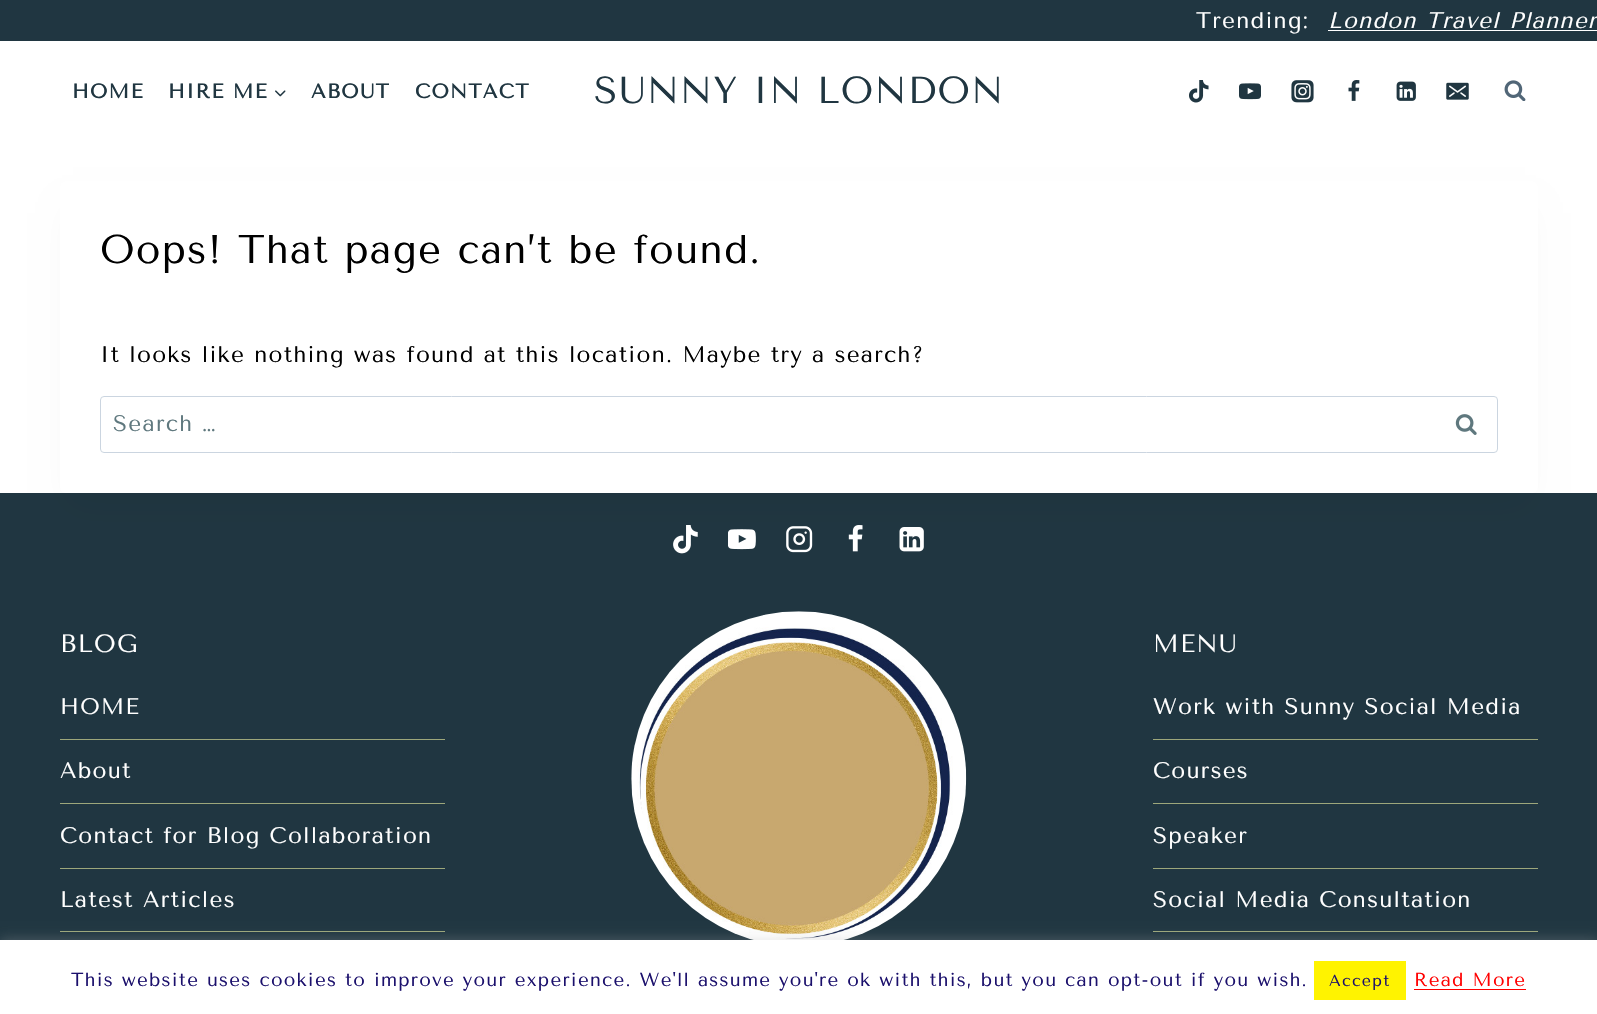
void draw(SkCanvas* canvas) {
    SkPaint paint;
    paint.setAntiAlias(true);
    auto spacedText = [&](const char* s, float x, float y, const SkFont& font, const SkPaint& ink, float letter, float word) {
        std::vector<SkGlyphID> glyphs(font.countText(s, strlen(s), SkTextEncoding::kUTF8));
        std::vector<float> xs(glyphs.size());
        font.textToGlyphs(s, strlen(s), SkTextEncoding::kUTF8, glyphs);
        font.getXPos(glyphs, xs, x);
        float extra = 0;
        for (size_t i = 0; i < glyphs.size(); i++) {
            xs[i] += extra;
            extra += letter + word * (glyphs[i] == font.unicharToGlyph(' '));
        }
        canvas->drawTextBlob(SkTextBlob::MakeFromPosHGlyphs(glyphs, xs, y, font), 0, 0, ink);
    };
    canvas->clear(0xFFFFFFFF);
    paint.setColor(0xFF203641);
    canvas->drawRect(SkRect::MakeXYWH(0, 0, 1597, 41), paint);
    SkFont font1(fontMgr->matchFamilyStyle("Tenor Sans", SkFontStyle::Normal()), 22.5f);
    font1.setSubpixel(true);
    paint.setColor(0xFFFFFFFF);
    spacedText("Trending:", 1196, 28, font1, paint, 1.25f, 0);
    SkFont font2(fontMgr->matchFamilyStyle("Tenor Sans", SkFontStyle::Italic()), 22.5f);
    font2.setSubpixel(true);
    spacedText("London Travel Planner", 1328, 28, font2, paint, 1.25f, 0);
    canvas->drawRect(SkRect::MakeXYWH(1328, 30, 269, 1), paint);
    SkFont font3(fontMgr->matchFamilyStyle("Tenor Sans", SkFontStyle::Bold()), 20);
    font3.setSubpixel(true);
    paint.setColor(0xFF203641);
    spacedText("HOME", 72, 98, font3, paint, 1.25f, 0);
    spacedText("HIRE ME", 168, 98, font3, paint, 1.25f, 0);
    canvas->drawImageRect(SkImages::DeferredFromEncodedData(SkData::MakeFromFileName("img1.png")), SkRect::MakeXYWH(275, 90, 11, 7), SkSamplingOptions());
    spacedText("ABOUT", 311, 98, font3, paint, 1.25f, 0);
    spacedText("CONTACT", 415, 98, font3, paint, 1.25f, 0);
    SkFont font4(fontMgr->matchFamilyStyle("Tenor Sans", SkFontStyle::Normal()), 37.5f);
    font4.setSubpixel(true);
    spacedText("SUNNY IN LONDON", 594, 103, font4, paint, 1.25f, 0);
    canvas->drawImageRect(SkImages::DeferredFromEncodedData(SkData::MakeFromFileName("img2.png")), SkRect::MakeXYWH(1189, 80, 20, 23), SkSamplingOptions());
    canvas->drawImageRect(SkImages::DeferredFromEncodedData(SkData::MakeFromFileName("img3.png")), SkRect::MakeXYWH(1239, 83, 22, 17), SkSamplingOptions());
    canvas->drawImageRect(SkImages::DeferredFromEncodedData(SkData::MakeFromFileName("img4.png")), SkRect::MakeXYWH(1291, 80, 23, 23), SkSamplingOptions());
    canvas->drawImageRect(SkImages::DeferredFromEncodedData(SkData::MakeFromFileName("img5.png")), SkRect::MakeXYWH(1348, 80, 12, 21), SkSamplingOptions());
    canvas->drawImageRect(SkImages::DeferredFromEncodedData(SkData::MakeFromFileName("img6.png")), SkRect::MakeXYWH(1396, 81, 20, 20), SkSamplingOptions());
    canvas->drawImageRect(SkImages::DeferredFromEncodedData(SkData::MakeFromFileName("img7.png")), SkRect::MakeXYWH(1446, 82, 23, 18), SkSamplingOptions());
    canvas->drawImageRect(SkImages::DeferredFromEncodedData(SkData::MakeFromFileName("img8.png")), SkRect::MakeXYWH(1504, 80, 22, 21), SkSamplingOptions());
    canvas->drawRect(SkRect::MakeXYWH(0, 493, 1597, 447), paint);
    paint.setColor(0x0D000000);
    paint.setMaskFilter(SkMaskFilter::MakeBlur(kNormal_SkBlurStyle, 15.5f));
    canvas->drawRect(SkRect::MakeXYWH(73, 213, 1452, 286), paint);
    paint.setMaskFilter(nullptr);
    paint.setColor(0xFFFFFFFF);
    canvas->drawRoundRect(SkRect::MakeXYWH(60, 181, 1478, 312), 5, 5, paint);
    SkFont font5(fontMgr->matchFamilyStyle("Tenor Sans", SkFontStyle::Normal()), 40);
    font5.setSubpixel(true);
    paint.setColor(0xFF000000);
    spacedText("Oops! That page can’t be found.", 100, 263, font5, paint, 1.25f, 0);
    spacedText("It looks like nothing was found at this location. Maybe try a search?", 100, 362, font1, paint, 1.25f, 0);
    paint.setStyle(SkPaint::kStroke_Style);
    paint.setStrokeWidth(1);
    paint.setColor(0xFFCBD5E0);
    canvas->drawRoundRect(SkRect::MakeXYWH(100.5f, 396.5f, 1397, 56), 3.5f, 3.5f, paint);
    paint.setStyle(SkPaint::kFill_Style);
    paint.setColor(0xFF5F787E);
    spacedText("Search …", 113, 431, font1, paint, 1.25f, 0);
    canvas->drawImageRect(SkImages::DeferredFromEncodedData(SkData::MakeFromFileName("img9.png")), SkRect::MakeXYWH(1455, 414, 22, 21), SkSamplingOptions());
    canvas->drawImageRect(SkImages::DeferredFromEncodedData(SkData::MakeFromFileName("img10.png")), SkRect::MakeXYWH(673, 525, 25, 29), SkSamplingOptions());
    canvas->drawImageRect(SkImages::DeferredFromEncodedData(SkData::MakeFromFileName("img11.png")), SkRect::MakeXYWH(728, 529, 28, 21), SkSamplingOptions());
    canvas->drawImageRect(SkImages::DeferredFromEncodedData(SkData::MakeFromFileName("img12.png")), SkRect::MakeXYWH(786, 526, 27, 27), SkSamplingOptions());
    canvas->drawImageRect(SkImages::DeferredFromEncodedData(SkData::MakeFromFileName("img13.png")), SkRect::MakeXYWH(848, 525, 15, 27), SkSamplingOptions());
    canvas->drawImageRect(SkImages::DeferredFromEncodedData(SkData::MakeFromFileName("img14.png")), SkRect::MakeXYWH(899, 527, 25, 25), SkSamplingOptions());
    SkFont font6(fontMgr->matchFamilyStyle("Tenor Sans", SkFontStyle::Normal()), 25);
    font6.setSubpixel(true);
    paint.setColor(0xFFFFFFFF);
    spacedText("BLOG", 60, 652, font6, paint, 1.25f, 0);
    paint.setColor(0xFF9DA77B);
    canvas->drawRect(SkRect::MakeXYWH(60, 739, 385, 1), paint);
    paint.setColor(0xFFFFFFFF);
    spacedText("HOME", 60, 714, font1, paint, 1.25f, 0);
    paint.setColor(0xFF9DA77B);
    canvas->drawRect(SkRect::MakeXYWH(60, 803, 385, 1), paint);
    paint.setColor(0xFFFFFFFF);
    spacedText("About", 60, 778, font1, paint, 1.25f, 0);
    paint.setColor(0xFF9DA77B);
    canvas->drawRect(SkRect::MakeXYWH(60, 868, 385, 1), paint);
    paint.setColor(0xFFFFFFFF);
    spacedText("Contact for Blog Collaboration", 60, 843, font1, paint, 1.25f, 0);
    paint.setColor(0xFF9DA77B);
    canvas->drawRect(SkRect::MakeXYWH(60, 931, 385, 1), paint);
    paint.setColor(0xFFFFFFFF);
    spacedText("Latest Articles", 60, 907, font1, paint, 1.25f, 0);
    canvas->drawImageRect(SkImages::DeferredFromEncodedData(SkData::MakeFromFileName("img15.png")), SkRect::MakeXYWH(631, 611, 336, 329), SkSamplingOptions());
    spacedText("MENU", 1153, 652, font6, paint, 1.25f, 0);
    paint.setColor(0xFF9DA77B);
    canvas->drawRect(SkRect::MakeXYWH(1153, 739, 385, 1), paint);
    paint.setColor(0xFFFFFFFF);
    spacedText("Work with Sunny Social Media", 1153, 714, font1, paint, 1.25f, 0);
    paint.setColor(0xFF9DA77B);
    canvas->drawRect(SkRect::MakeXYWH(1153, 803, 385, 1), paint);
    paint.setColor(0xFFFFFFFF);
    spacedText("Courses", 1153, 778, font1, paint, 1.25f, 0);
    paint.setColor(0xFF9DA77B);
    canvas->drawRect(SkRect::MakeXYWH(1153, 868, 385, 1), paint);
    paint.setColor(0xFFFFFFFF);
    spacedText("Speaker", 1153, 843, font1, paint, 1.25f, 0);
    paint.setColor(0xFF9DA77B);
    canvas->drawRect(SkRect::MakeXYWH(1153, 931, 385, 1), paint);
    paint.setColor(0xFFFFFFFF);
    spacedText("Social Media Consultation", 1153, 907, font1, paint, 1.25f, 0);
    paint.setColor(0x4DACABAB);
    paint.setMaskFilter(SkMaskFilter::MakeBlur(kNormal_SkBlurStyle, 6));
    canvas->drawRect(SkRect::MakeXYWH(0, 939, 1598, 75), paint);
    paint.setMaskFilter(nullptr);
    paint.setColor(0xFFFFFFFF);
    canvas->drawRect(SkRect::MakeXYWH(0, 940, 1597, 74), paint);
    SkFont font7(fontMgr->matchFamilyStyle("Tenor Sans", SkFontStyle::Normal()), 18.75f);
    font7.setSubpixel(true);
    paint.setColor(0xFF1B106C);
    spacedText("This website uses cookies to improve your experience. We'll assume you're ok with this, but you can opt-out if you wish.", 71, 986, font7, paint, 1.25f, 0);
    paint.setColor(0xFFFFF300);
    canvas->drawRect(SkRect::MakeXYWH(1314, 961, 92, 39), paint);
    SkFont font8(fontMgr->matchFamilyStyle("Tenor Sans", SkFontStyle::Normal()), 16);
    font8.setSubpixel(true);
    paint.setColor(0xFF1B106C);
    spacedText("Accept", 1329, 986, font8, paint, 1.25f, 0);
    paint.setColor(0xFFFF0000);
    spacedText("Read More", 1414, 986, font7, paint, 1.25f, 0);
    canvas->drawRect(SkRect::MakeXYWH(1414, 989, 112, 1), paint);
}
